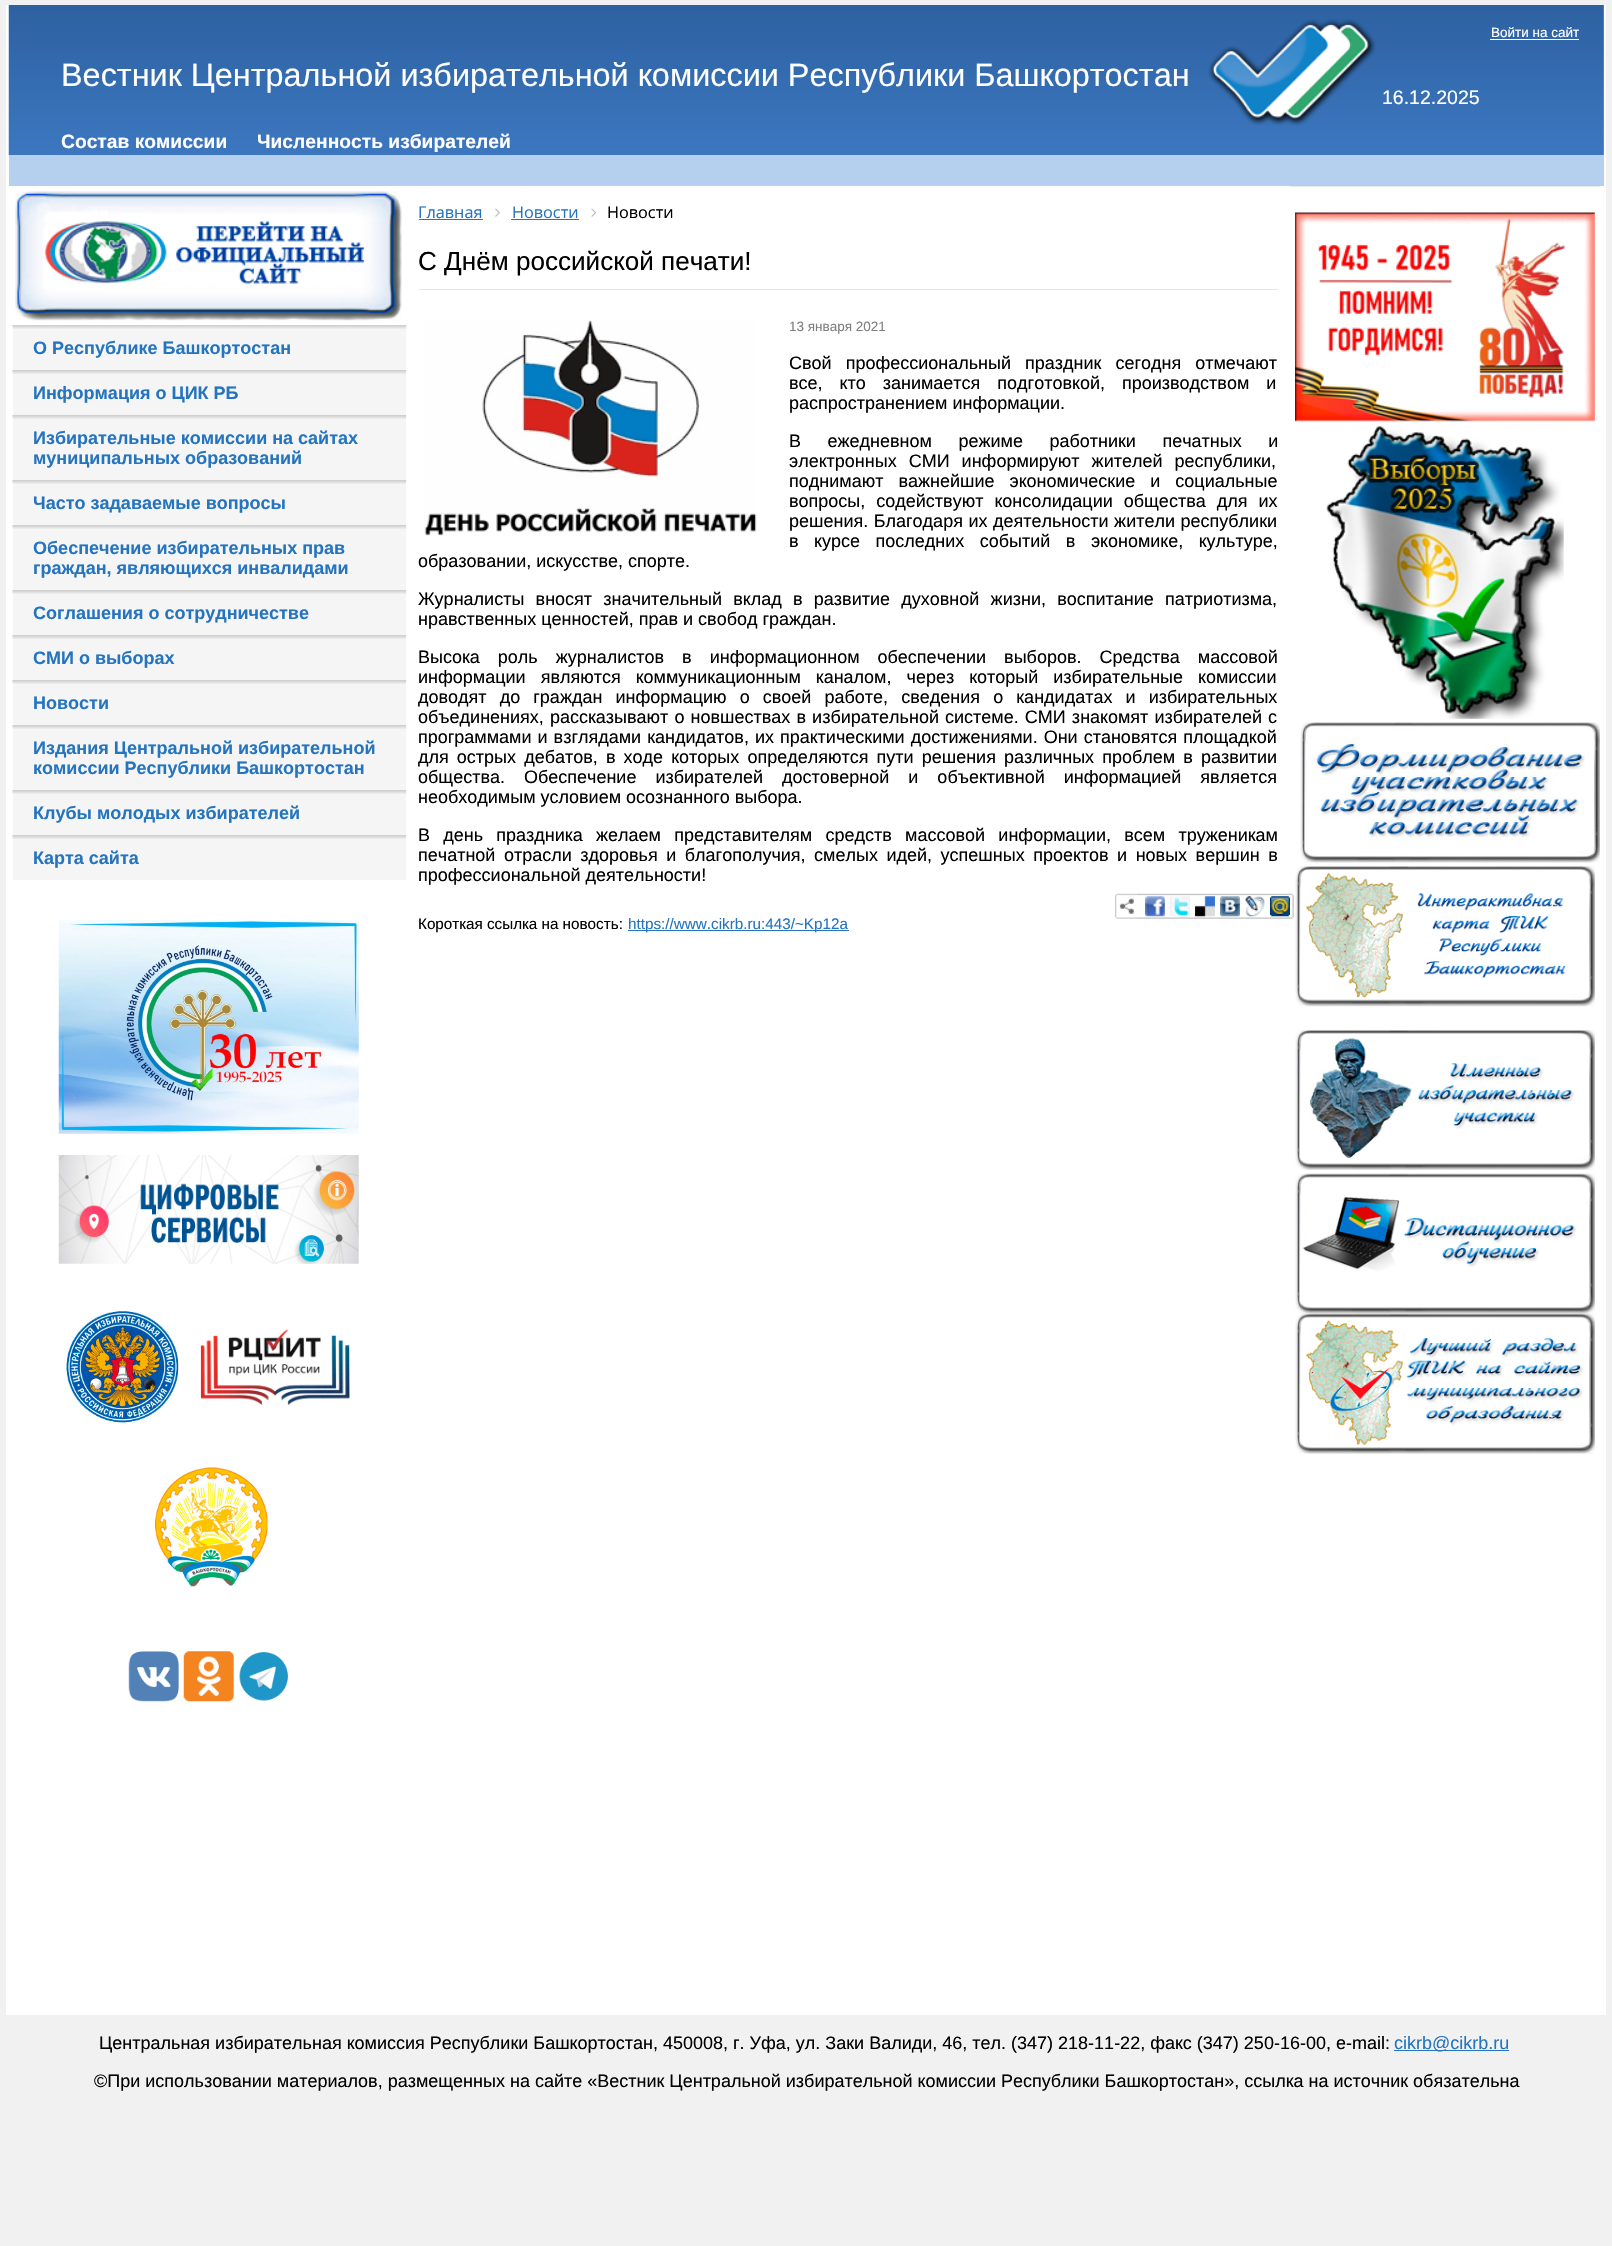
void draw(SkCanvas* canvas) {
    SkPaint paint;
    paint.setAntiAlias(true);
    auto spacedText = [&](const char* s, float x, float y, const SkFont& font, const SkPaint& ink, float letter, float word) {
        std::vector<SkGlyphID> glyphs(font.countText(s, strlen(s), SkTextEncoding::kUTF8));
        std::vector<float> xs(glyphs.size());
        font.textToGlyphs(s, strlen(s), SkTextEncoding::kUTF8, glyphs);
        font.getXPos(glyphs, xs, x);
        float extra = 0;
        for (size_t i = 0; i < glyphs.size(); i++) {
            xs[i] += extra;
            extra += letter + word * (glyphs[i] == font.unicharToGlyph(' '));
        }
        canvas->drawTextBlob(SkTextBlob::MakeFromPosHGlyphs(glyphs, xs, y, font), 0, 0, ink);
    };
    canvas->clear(0xFFF1F1F1);
    paint.setColor(0xFFFFFFFF);
    canvas->drawRect(SkRect::MakeXYWH(6, 5, 1600, 2010), paint);
    paint.setColor(0xFFB5CFEE);
    canvas->drawRect(SkRect::MakeXYWH(9, 5, 1595, 181), paint);
    canvas->drawImageRect(SkImages::DeferredFromEncodedData(SkData::MakeFromFileName("img1.png")), SkRect::MakeXYWH(8, 5, 1596, 150), SkSamplingOptions());
    SkFont font1(fontMgr->matchFamilyStyle("Liberation Sans", SkFontStyle::Normal()), 13.5f);
    font1.setSubpixel(true);
    paint.setColor(0xFFFFFFFF);
    canvas->drawString("Войти на сайт", 1491, 37, font1, paint);
    canvas->drawRect(SkRect::MakeXYWH(1490, 39, 89, 1), paint);
    SkFont font2(fontMgr->matchFamilyStyle("Liberation Sans", SkFontStyle::Normal()), 32.4f);
    font2.setSubpixel(true);
    canvas->drawString("Вестник Центральной избирательной комиссии Республики Башкортостан", 61, 86, font2, paint);
    canvas->drawImageRect(SkImages::DeferredFromEncodedData(SkData::MakeFromFileName("img2.png")), SkRect::MakeXYWH(1208, 19, 168, 107), SkSamplingOptions());
    SkFont font3(fontMgr->matchFamilyStyle("Liberation Sans", SkFontStyle::Normal()), 19.5f);
    font3.setSubpixel(true);
    canvas->drawString("16.12.2025", 1382, 104, font3, paint);
    SkFont font4(fontMgr->matchFamilyStyle("Liberation Sans", SkFontStyle::Bold()), 19.25f);
    font4.setSubpixel(true);
    canvas->drawString("Состав комиссии", 61, 148, font4, paint);
    canvas->drawString("Численность избирателей", 257, 148, font4, paint);
    canvas->drawImageRect(SkImages::DeferredFromEncodedData(SkData::MakeFromFileName("img3.png")), SkRect::MakeXYWH(15, 191, 388, 130), SkSamplingOptions());
    paint.setColor(0xFFF5F5F5);
    canvas->drawRect(SkRect::MakeXYWH(13, 328, 393, 42), paint);
    canvas->drawImageRect(SkImages::DeferredFromEncodedData(SkData::MakeFromFileName("img4.png")), SkRect::MakeXYWH(12, 325, 395, 4), SkSamplingOptions());
    SkFont font5(fontMgr->matchFamilyStyle("Liberation Sans", SkFontStyle::Bold()), 18);
    font5.setSubpixel(true);
    paint.setColor(0xFF2474BF);
    canvas->drawString("О Республике Башкортостан", 33, 354, font5, paint);
    paint.setColor(0xFFF5F5F5);
    canvas->drawRect(SkRect::MakeXYWH(13, 373, 393, 42), paint);
    canvas->drawImageRect(SkImages::DeferredFromEncodedData(SkData::MakeFromFileName("img4.png")), SkRect::MakeXYWH(12, 370, 395, 4), SkSamplingOptions());
    paint.setColor(0xFF2474BF);
    canvas->drawString("Информация о ЦИК РБ", 33, 399, font5, paint);
    paint.setColor(0xFFF5F5F5);
    canvas->drawRect(SkRect::MakeXYWH(13, 418, 393, 62), paint);
    canvas->drawImageRect(SkImages::DeferredFromEncodedData(SkData::MakeFromFileName("img4.png")), SkRect::MakeXYWH(12, 415, 395, 4), SkSamplingOptions());
    paint.setColor(0xFF2474BF);
    canvas->drawString("Избирательные комиссии на сайтах", 33, 444, font5, paint);
    canvas->drawString("муниципальных образований", 33, 464, font5, paint);
    paint.setColor(0xFFF5F5F5);
    canvas->drawRect(SkRect::MakeXYWH(13, 483, 393, 42), paint);
    canvas->drawImageRect(SkImages::DeferredFromEncodedData(SkData::MakeFromFileName("img4.png")), SkRect::MakeXYWH(12, 480, 395, 4), SkSamplingOptions());
    paint.setColor(0xFF2474BF);
    canvas->drawString("Часто задаваемые вопросы", 33, 509, font5, paint);
    paint.setColor(0xFFF5F5F5);
    canvas->drawRect(SkRect::MakeXYWH(13, 528, 393, 62), paint);
    canvas->drawImageRect(SkImages::DeferredFromEncodedData(SkData::MakeFromFileName("img4.png")), SkRect::MakeXYWH(12, 525, 395, 4), SkSamplingOptions());
    paint.setColor(0xFF2474BF);
    canvas->drawString("Обеспечение избирательных прав", 33, 554, font5, paint);
    canvas->drawString("граждан, являющихся инвалидами", 33, 574, font5, paint);
    paint.setColor(0xFFF5F5F5);
    canvas->drawRect(SkRect::MakeXYWH(13, 593, 393, 42), paint);
    canvas->drawImageRect(SkImages::DeferredFromEncodedData(SkData::MakeFromFileName("img4.png")), SkRect::MakeXYWH(12, 590, 395, 4), SkSamplingOptions());
    paint.setColor(0xFF2474BF);
    canvas->drawString("Соглашения о сотрудничестве", 33, 619, font5, paint);
    paint.setColor(0xFFF5F5F5);
    canvas->drawRect(SkRect::MakeXYWH(13, 638, 393, 42), paint);
    canvas->drawImageRect(SkImages::DeferredFromEncodedData(SkData::MakeFromFileName("img4.png")), SkRect::MakeXYWH(12, 635, 395, 4), SkSamplingOptions());
    paint.setColor(0xFF2474BF);
    canvas->drawString("СМИ о выборах", 33, 664, font5, paint);
    paint.setColor(0xFFF5F5F5);
    canvas->drawRect(SkRect::MakeXYWH(13, 683, 393, 42), paint);
    canvas->drawImageRect(SkImages::DeferredFromEncodedData(SkData::MakeFromFileName("img4.png")), SkRect::MakeXYWH(12, 680, 395, 4), SkSamplingOptions());
    paint.setColor(0xFF2474BF);
    canvas->drawString("Новости", 33, 709, font5, paint);
    paint.setColor(0xFFF5F5F5);
    canvas->drawRect(SkRect::MakeXYWH(13, 728, 393, 62), paint);
    canvas->drawImageRect(SkImages::DeferredFromEncodedData(SkData::MakeFromFileName("img4.png")), SkRect::MakeXYWH(12, 725, 395, 4), SkSamplingOptions());
    paint.setColor(0xFF2474BF);
    canvas->drawString("Издания Центральной избирательной", 33, 754, font5, paint);
    canvas->drawString("комиссии Республики Башкортостан", 33, 774, font5, paint);
    paint.setColor(0xFFF5F5F5);
    canvas->drawRect(SkRect::MakeXYWH(13, 793, 393, 42), paint);
    canvas->drawImageRect(SkImages::DeferredFromEncodedData(SkData::MakeFromFileName("img4.png")), SkRect::MakeXYWH(12, 790, 395, 4), SkSamplingOptions());
    paint.setColor(0xFF2474BF);
    canvas->drawString("Клубы молодых избирателей", 33, 819, font5, paint);
    paint.setColor(0xFFF5F5F5);
    canvas->drawRect(SkRect::MakeXYWH(13, 838, 393, 42), paint);
    canvas->drawImageRect(SkImages::DeferredFromEncodedData(SkData::MakeFromFileName("img4.png")), SkRect::MakeXYWH(12, 835, 395, 4), SkSamplingOptions());
    paint.setColor(0xFF2474BF);
    canvas->drawString("Карта сайта", 33, 864, font5, paint);
    canvas->drawImageRect(SkImages::DeferredFromEncodedData(SkData::MakeFromFileName("img5.png")), SkRect::MakeXYWH(58, 920, 301, 214), SkSamplingOptions());
    canvas->drawImageRect(SkImages::DeferredFromEncodedData(SkData::MakeFromFileName("img6.png")), SkRect::MakeXYWH(58, 1155, 301, 109), SkSamplingOptions());
    canvas->drawImageRect(SkImages::DeferredFromEncodedData(SkData::MakeFromFileName("img7.png")), SkRect::MakeXYWH(66, 1311, 113, 112), SkSamplingOptions());
    canvas->drawImageRect(SkImages::DeferredFromEncodedData(SkData::MakeFromFileName("img8.png")), SkRect::MakeXYWH(200, 1329, 150, 76), SkSamplingOptions());
    canvas->drawImageRect(SkImages::DeferredFromEncodedData(SkData::MakeFromFileName("img9.png")), SkRect::MakeXYWH(155, 1467, 113, 120), SkSamplingOptions());
    canvas->drawImageRect(SkImages::DeferredFromEncodedData(SkData::MakeFromFileName("img10.png")), SkRect::MakeXYWH(128, 1651, 51, 51), SkSamplingOptions());
    canvas->drawImageRect(SkImages::DeferredFromEncodedData(SkData::MakeFromFileName("img11.png")), SkRect::MakeXYWH(183, 1651, 51, 51), SkSamplingOptions());
    canvas->drawImageRect(SkImages::DeferredFromEncodedData(SkData::MakeFromFileName("img12.png")), SkRect::MakeXYWH(239, 1652, 49, 49), SkSamplingOptions());
    SkFont font6(fontMgr->matchFamilyStyle("Open Sans", SkFontStyle::Normal()), 16.25f);
    font6.setSubpixel(true);
    canvas->drawString("Главная", 418, 218, font6, paint);
    canvas->drawRect(SkRect::MakeXYWH(419, 219, 64, 1), paint);
    canvas->drawImageRect(SkImages::DeferredFromEncodedData(SkData::MakeFromFileName("img13.png")), SkRect::MakeXYWH(495, 208, 5, 9), SkSamplingOptions());
    canvas->drawString("Новости", 512, 218, font6, paint);
    canvas->drawRect(SkRect::MakeXYWH(511, 219, 68, 1), paint);
    canvas->drawImageRect(SkImages::DeferredFromEncodedData(SkData::MakeFromFileName("img14.png")), SkRect::MakeXYWH(591, 208, 6, 9), SkSamplingOptions());
    paint.setColor(0xFF000000);
    canvas->drawString("Новости", 607, 218, font6, paint);
    paint.setColor(0xFFE5E5E5);
    canvas->drawRect(SkRect::MakeXYWH(419, 289, 859, 1), paint);
    SkFont font7(fontMgr->matchFamilyStyle("Liberation Sans", SkFontStyle::Normal()), 26.1f);
    font7.setSubpixel(true);
    paint.setColor(0xFF000000);
    canvas->drawString("С Днём российской печати!", 418, 270, font7, paint);
    canvas->drawImageRect(SkImages::DeferredFromEncodedData(SkData::MakeFromFileName("img15.png")), SkRect::MakeXYWH(424, 320, 333, 216), SkSamplingOptions());
    paint.setColor(0xFF7F7F7F);
    canvas->drawString("13 января 2021", 789, 331, font1, paint);
    SkFont font8(fontMgr->matchFamilyStyle("Liberation Sans", SkFontStyle::Normal()), 18);
    font8.setSubpixel(true);
    paint.setColor(0xFF000000);
    spacedText("Свой профессиональный праздник сегодня отмечают", 789, 369, font8, paint, 0, 9);
    spacedText("все, кто занимается подготовкой, производством и", 789, 389, font8, paint, 0, 12);
    canvas->drawString("распространением информации.", 789, 409, font8, paint);
    spacedText("В ежедневном режиме работники печатных и", 789, 447, font8, paint, 0, 21.5f);
    spacedText("электронных СМИ информируют жителей республики,", 789, 467, font8, paint, 0, 7);
    spacedText("поднимают важнейшие экономические и социальные", 789, 487, font8, paint, 0, 10);
    spacedText("вопросы, содействуют консолидации общества для их", 789, 507, font8, paint, 0, 6);
    spacedText("решения. Благодаря их деятельности жители республики", 789, 527, font8, paint, 0, 0.5f);
    spacedText("в курсе последних событий в экономике, культуре,", 789, 547, font8, paint, 0, 10.5f);
    canvas->drawString("образовании, искусстве, спорте.", 418, 567, font8, paint);
    spacedText("Журналисты вносят значительный вклад в развитие духовной жизни, воспитание патриотизма,", 418, 605, font8, paint, 0, 6.25f);
    canvas->drawString("нравственных ценностей, прав и свобод граждан.", 418, 625, font8, paint);
    spacedText("Высока роль журналистов в информационном обеспечении выборов. Средства массовой", 418, 663, font8, paint, 0, 13);
    spacedText("информации являются коммуникационным каналом, через который избирательные комиссии", 418, 683, font8, paint, 0, 10);
    spacedText("доводят до граждан информацию о своей работе, сведения о кандидатах и избирательных", 418, 703, font8, paint, 0, 8.1f);
    spacedText("объединениях, рассказывают о новшествах в избирательной системе. СМИ знакомят избирателей с", 418, 723, font8, paint, 0, 1.1f);
    spacedText("программами и взглядами кандидатов, их практическими достижениями. Они становятся площадкой", 418, 743, font8, paint, 0, 1);
    spacedText("для острых дебатов, в ходе которых определяются пути решения различных проблем в развитии", 418, 763, font8, paint, 0, 3.1f);
    spacedText("общества. Обеспечение избирателей достоверной и объективной информацией является", 418, 783, font8, paint, 0, 14);
    canvas->drawString("необходимым условием осознанного выбора.", 418, 803, font8, paint);
    spacedText("В день праздника желаем представителям средств массовой информации, всем труженикам", 418, 841, font8, paint, 0, 8.25f);
    spacedText("печатной отрасли здоровья и благополучия, смелых идей, успешных проектов и новых вершин в", 418, 861, font8, paint, 0, 3.5f);
    canvas->drawString("профессиональной деятельности!", 418, 881, font8, paint);
    SkFont font9(fontMgr->matchFamilyStyle("Liberation Sans", SkFontStyle::Normal()), 15.25f);
    font9.setSubpixel(true);
    canvas->drawString("Короткая ссылка на новость:", 418, 929, font9, paint);
    paint.setColor(0xFF2474BF);
    canvas->drawRect(SkRect::MakeXYWH(628, 930, 221, 1), paint);
    canvas->drawString("https://www.cikrb.ru:443/~Kp12a", 628, 929, font9, paint);
    canvas->drawImageRect(SkImages::DeferredFromEncodedData(SkData::MakeFromFileName("img16.png")), SkRect::MakeXYWH(1115, 893, 24, 26), SkSamplingOptions());
    canvas->drawImageRect(SkImages::DeferredFromEncodedData(SkData::MakeFromFileName("img17.png")), SkRect::MakeXYWH(1137, 893, 157, 26), SkSamplingOptions());
    canvas->drawImageRect(SkImages::DeferredFromEncodedData(SkData::MakeFromFileName("img18.png")), SkRect::MakeXYWH(1145, 896, 20, 21), SkSamplingOptions());
    canvas->drawImageRect(SkImages::DeferredFromEncodedData(SkData::MakeFromFileName("img19.png")), SkRect::MakeXYWH(1170, 896, 20, 21), SkSamplingOptions());
    canvas->drawImageRect(SkImages::DeferredFromEncodedData(SkData::MakeFromFileName("img20.png")), SkRect::MakeXYWH(1195, 896, 20, 21), SkSamplingOptions());
    canvas->drawImageRect(SkImages::DeferredFromEncodedData(SkData::MakeFromFileName("img21.png")), SkRect::MakeXYWH(1220, 896, 20, 21), SkSamplingOptions());
    canvas->drawImageRect(SkImages::DeferredFromEncodedData(SkData::MakeFromFileName("img22.png")), SkRect::MakeXYWH(1245, 896, 20, 21), SkSamplingOptions());
    canvas->drawImageRect(SkImages::DeferredFromEncodedData(SkData::MakeFromFileName("img23.png")), SkRect::MakeXYWH(1270, 896, 20, 21), SkSamplingOptions());
    paint.setColor(0xFFE9E9E9);
    canvas->drawRect(SkRect::MakeXYWH(1290, 186, 310, 1), paint);
    canvas->drawImageRect(SkImages::DeferredFromEncodedData(SkData::MakeFromFileName("img24.png")), SkRect::MakeXYWH(1295, 212, 300, 210), SkSamplingOptions());
    canvas->drawImageRect(SkImages::DeferredFromEncodedData(SkData::MakeFromFileName("img25.png")), SkRect::MakeXYWH(1326, 426, 238, 293), SkSamplingOptions());
    canvas->drawImageRect(SkImages::DeferredFromEncodedData(SkData::MakeFromFileName("img26.png")), SkRect::MakeXYWH(1300, 722, 300, 141), SkSamplingOptions());
    canvas->drawImageRect(SkImages::DeferredFromEncodedData(SkData::MakeFromFileName("img27.png")), SkRect::MakeXYWH(1295, 866, 300, 141), SkSamplingOptions());
    canvas->drawImageRect(SkImages::DeferredFromEncodedData(SkData::MakeFromFileName("img28.png")), SkRect::MakeXYWH(1295, 1030, 300, 140), SkSamplingOptions());
    canvas->drawImageRect(SkImages::DeferredFromEncodedData(SkData::MakeFromFileName("img29.png")), SkRect::MakeXYWH(1295, 1173, 300, 141), SkSamplingOptions());
    canvas->drawImageRect(SkImages::DeferredFromEncodedData(SkData::MakeFromFileName("img30.png")), SkRect::MakeXYWH(1295, 1313, 300, 141), SkSamplingOptions());
    paint.setColor(0xFF000000);
    canvas->drawString("Центральная избирательная комиссия Республики Башкортостан, 450008, г. Уфа, ул. Заки Валиди, 46, тел. (347) 218-11-22, факс (347) 250-16-00, e-mail:", 99, 2049, font8, paint);
    paint.setColor(0xFF2474BF);
    canvas->drawRect(SkRect::MakeXYWH(1394, 2050, 115, 1), paint);
    canvas->drawString("cikrb@cikrb.ru", 1394, 2049, font8, paint);
    paint.setColor(0xFF000000);
    canvas->drawString("©При использовании материалов, размещенных на сайте «Вестник Центральной избирательной комиссии Республики Башкортостан», ссылка на источник обязательна", 94, 2087, font8, paint);
}
